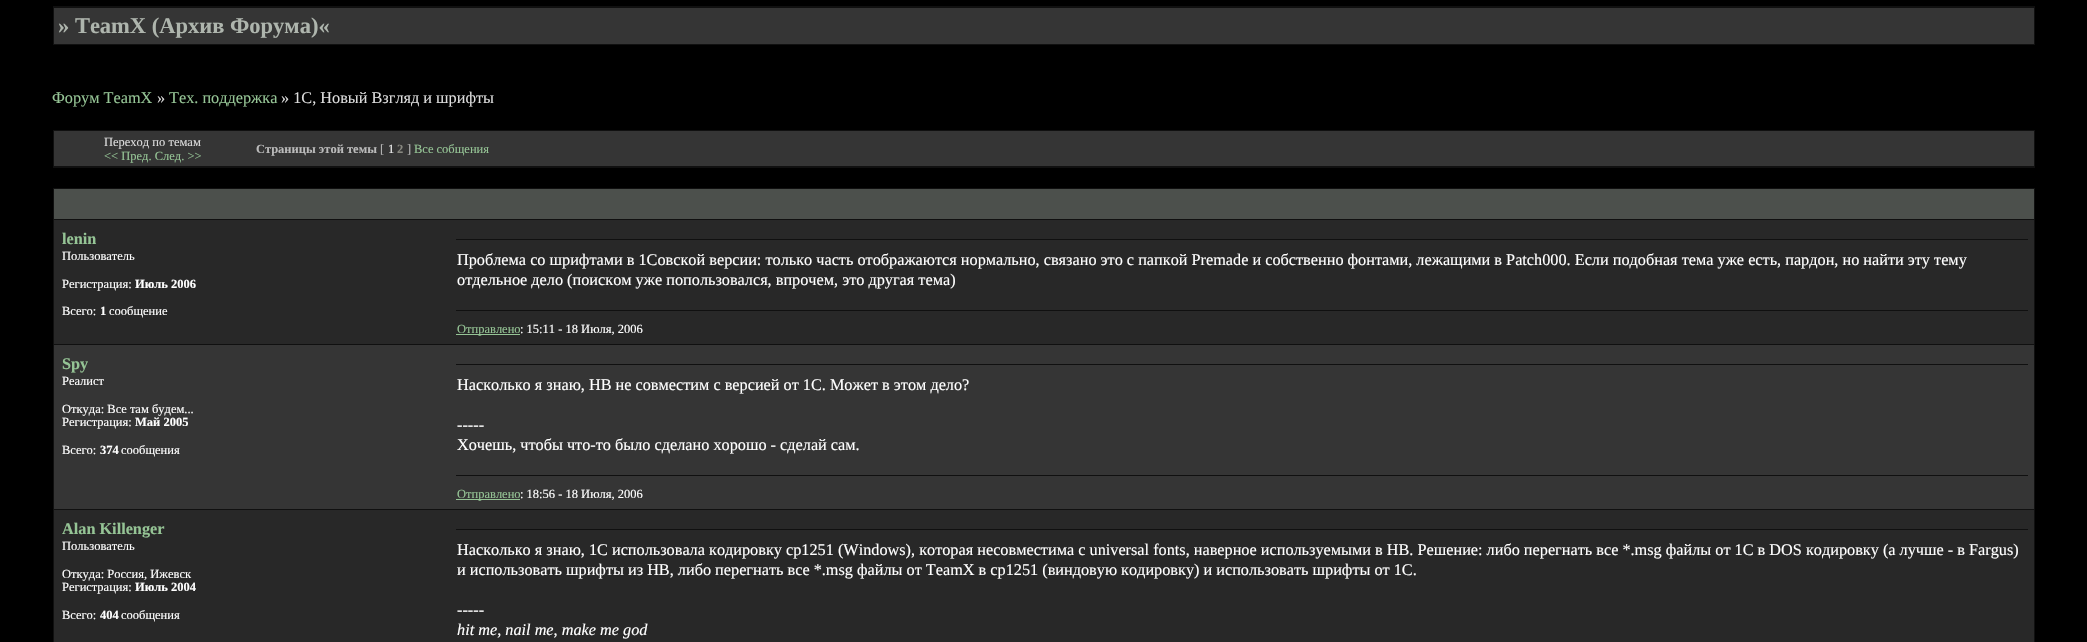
void draw(SkCanvas* canvas) {
    SkPaint paint;
    paint.setAntiAlias(true);
    canvas->clear(0xFF000000);
    paint.setColor(0xFF101010);
    canvas->drawRect(SkRect::MakeXYWH(53, 6, 1982, 39), paint);
    paint.setColor(0xFF353535);
    canvas->drawRect(SkRect::MakeXYWH(54, 8, 1980, 36), paint);
    SkFont font1(fontMgr->matchFamilyStyle("Liberation Serif", SkFontStyle::Bold()), 22.5f);
    font1.setSubpixel(true);
    paint.setColor(0xFFAEB5AD);
    canvas->drawString("» TeamX (Архив Форума)«", 58, 33, font1, paint);
    SkFont font2(fontMgr->matchFamilyStyle("Liberation Serif", SkFontStyle::Normal()), 16.25f);
    font2.setSubpixel(true);
    paint.setColor(0xFF95C495);
    canvas->drawString("Форум TeamX", 52, 103, font2, paint);
    paint.setColor(0xFFDDDDDD);
    canvas->drawString("»", 157, 103, font2, paint);
    paint.setColor(0xFF95C495);
    canvas->drawString("Тех. поддержка", 169, 103, font2, paint);
    paint.setColor(0xFFDDDDDD);
    canvas->drawString("» 1С, Новый Взгляд и шрифты", 281, 103, font2, paint);
    paint.setColor(0xFF101010);
    canvas->drawRect(SkRect::MakeXYWH(53, 130, 1982, 38), paint);
    paint.setColor(0xFF353535);
    canvas->drawRect(SkRect::MakeXYWH(54, 131, 1980, 35), paint);
    SkFont font3(fontMgr->matchFamilyStyle("Liberation Serif", SkFontStyle::Normal()), 12.5f);
    font3.setSubpixel(true);
    paint.setColor(0xFFDDDDDD);
    canvas->drawString("Переход по темам", 104, 146, font3, paint);
    paint.setColor(0xFF95C495);
    canvas->drawString("<< Пред. След. >>", 104, 160, font3, paint);
    SkFont font4(fontMgr->matchFamilyStyle("Liberation Serif", SkFontStyle::Bold()), 12.5f);
    font4.setSubpixel(true);
    paint.setColor(0xFFBBBBBB);
    canvas->drawString("Страницы этой темы", 256, 153, font4, paint);
    canvas->drawString("[", 380, 153, font3, paint);
    paint.setColor(0xFFEEEEEE);
    canvas->drawString("1", 388, 153, font3, paint);
    paint.setColor(0xFF888880);
    canvas->drawString("2", 397, 153, font4, paint);
    paint.setColor(0xFFBBBBBB);
    canvas->drawString("]", 407, 153, font3, paint);
    paint.setColor(0xFF95C495);
    canvas->drawString("Все собщения", 414, 153, font3, paint);
    paint.setColor(0xFF101010);
    canvas->drawRect(SkRect::MakeXYWH(53, 188, 1982, 454), paint);
    paint.setColor(0xFF4C504C);
    canvas->drawRect(SkRect::MakeXYWH(54, 189, 1980, 30), paint);
    paint.setColor(0xFF282828);
    canvas->drawRect(SkRect::MakeXYWH(54, 220, 1980, 124), paint);
    SkFont font5(fontMgr->matchFamilyStyle("Liberation Serif", SkFontStyle::Bold()), 16.25f);
    font5.setSubpixel(true);
    paint.setColor(0xFF95C495);
    canvas->drawString("lenin", 62, 244, font5, paint);
    paint.setColor(0xFFFFFFFF);
    canvas->drawString("Пользователь", 62, 260, font3, paint);
    canvas->drawString("Регистрация:", 62, 288, font3, paint);
    canvas->drawString("Июль 2006", 135, 288, font4, paint);
    canvas->drawString("Всего:", 62, 315, font3, paint);
    canvas->drawString("1", 100, 315, font4, paint);
    canvas->drawString("сообщение", 109, 315, font3, paint);
    paint.setColor(0xFF101010);
    canvas->drawRect(SkRect::MakeXYWH(456, 239, 1572, 1), paint);
    paint.setColor(0xFFFFFFFF);
    canvas->drawString("Проблема со шрифтами в 1Совской версии: только часть отображаются нормально, связано это с папкой Premade и собственно фонтами, лежащими в Patch000. Если подобная тема уже есть, пардон, но найти эту тему", 457, 265, font2, paint);
    canvas->drawString("отдельное дело (поиском уже попользовался, впрочем, это другая тема)", 457, 285, font2, paint);
    paint.setColor(0xFF101010);
    canvas->drawRect(SkRect::MakeXYWH(456, 310, 1572, 1), paint);
    paint.setColor(0xFF95C495);
    canvas->drawRect(SkRect::MakeXYWH(456, 334, 64, 1), paint);
    canvas->drawString("Отправлено", 457, 333, font3, paint);
    paint.setColor(0xFFFFFFFF);
    canvas->drawString(": 15:11 - 18 Июля, 2006", 520, 333, font3, paint);
    paint.setColor(0xFF353535);
    canvas->drawRect(SkRect::MakeXYWH(54, 345, 1980, 164), paint);
    paint.setColor(0xFF95C495);
    canvas->drawString("Spy", 62, 369, font5, paint);
    paint.setColor(0xFFFFFFFF);
    canvas->drawString("Реалист", 62, 385, font3, paint);
    canvas->drawString("Откуда: Все там будем...", 62, 413, font3, paint);
    canvas->drawString("Регистрация:", 62, 426, font3, paint);
    canvas->drawString("Май 2005", 135, 426, font4, paint);
    canvas->drawString("Всего:", 62, 454, font3, paint);
    canvas->drawString("374", 100, 454, font4, paint);
    canvas->drawString("сообщения", 121, 454, font3, paint);
    paint.setColor(0xFF101010);
    canvas->drawRect(SkRect::MakeXYWH(456, 364, 1572, 1), paint);
    paint.setColor(0xFFFFFFFF);
    canvas->drawString("Насколько я знаю, НВ не совместим с версией от 1С. Может в этом дело?", 457, 390, font2, paint);
    canvas->drawString("-----", 457, 430, font2, paint);
    canvas->drawString("Хочешь, чтобы что-то было сделано хорошо - сделай сам.", 457, 450, font2, paint);
    paint.setColor(0xFF101010);
    canvas->drawRect(SkRect::MakeXYWH(456, 475, 1572, 1), paint);
    paint.setColor(0xFF95C495);
    canvas->drawRect(SkRect::MakeXYWH(456, 499, 64, 1), paint);
    canvas->drawString("Отправлено", 457, 498, font3, paint);
    paint.setColor(0xFFFFFFFF);
    canvas->drawString(": 18:56 - 18 Июля, 2006", 520, 498, font3, paint);
    paint.setColor(0xFF282828);
    canvas->drawRect(SkRect::MakeXYWH(54, 510, 1980, 132), paint);
    paint.setColor(0xFF95C495);
    canvas->drawString("Alan Killenger", 62, 534, font5, paint);
    paint.setColor(0xFFFFFFFF);
    canvas->drawString("Пользователь", 62, 550, font3, paint);
    canvas->drawString("Откуда: Россия, Ижевск", 62, 578, font3, paint);
    canvas->drawString("Регистрация:", 62, 591, font3, paint);
    canvas->drawString("Июль 2004", 135, 591, font4, paint);
    canvas->drawString("Всего:", 62, 619, font3, paint);
    canvas->drawString("404", 100, 619, font4, paint);
    canvas->drawString("сообщения", 121, 619, font3, paint);
    paint.setColor(0xFF101010);
    canvas->drawRect(SkRect::MakeXYWH(456, 529, 1572, 1), paint);
    paint.setColor(0xFFFFFFFF);
    canvas->drawString("Насколько я знаю, 1С использовала кодировку cp1251 (Windows), которая несовместима с universal fonts, наверное используемыми в НВ. Решение: либо перегнать все *.msg файлы от 1С в DOS кодировку (а лучше - в Fargus)", 457, 555, font2, paint);
    canvas->drawString("и использовать шрифты из НВ, либо перегнать все *.msg файлы от TeamX в cp1251 (виндовую кодировку) и использовать шрифты от 1С.", 457, 575, font2, paint);
    canvas->drawString("-----", 457, 615, font2, paint);
    SkFont font6(fontMgr->matchFamilyStyle("Liberation Serif", SkFontStyle::Italic()), 16.25f);
    font6.setSubpixel(true);
    canvas->drawString("hit me, nail me, make me god", 457, 635, font6, paint);
}
